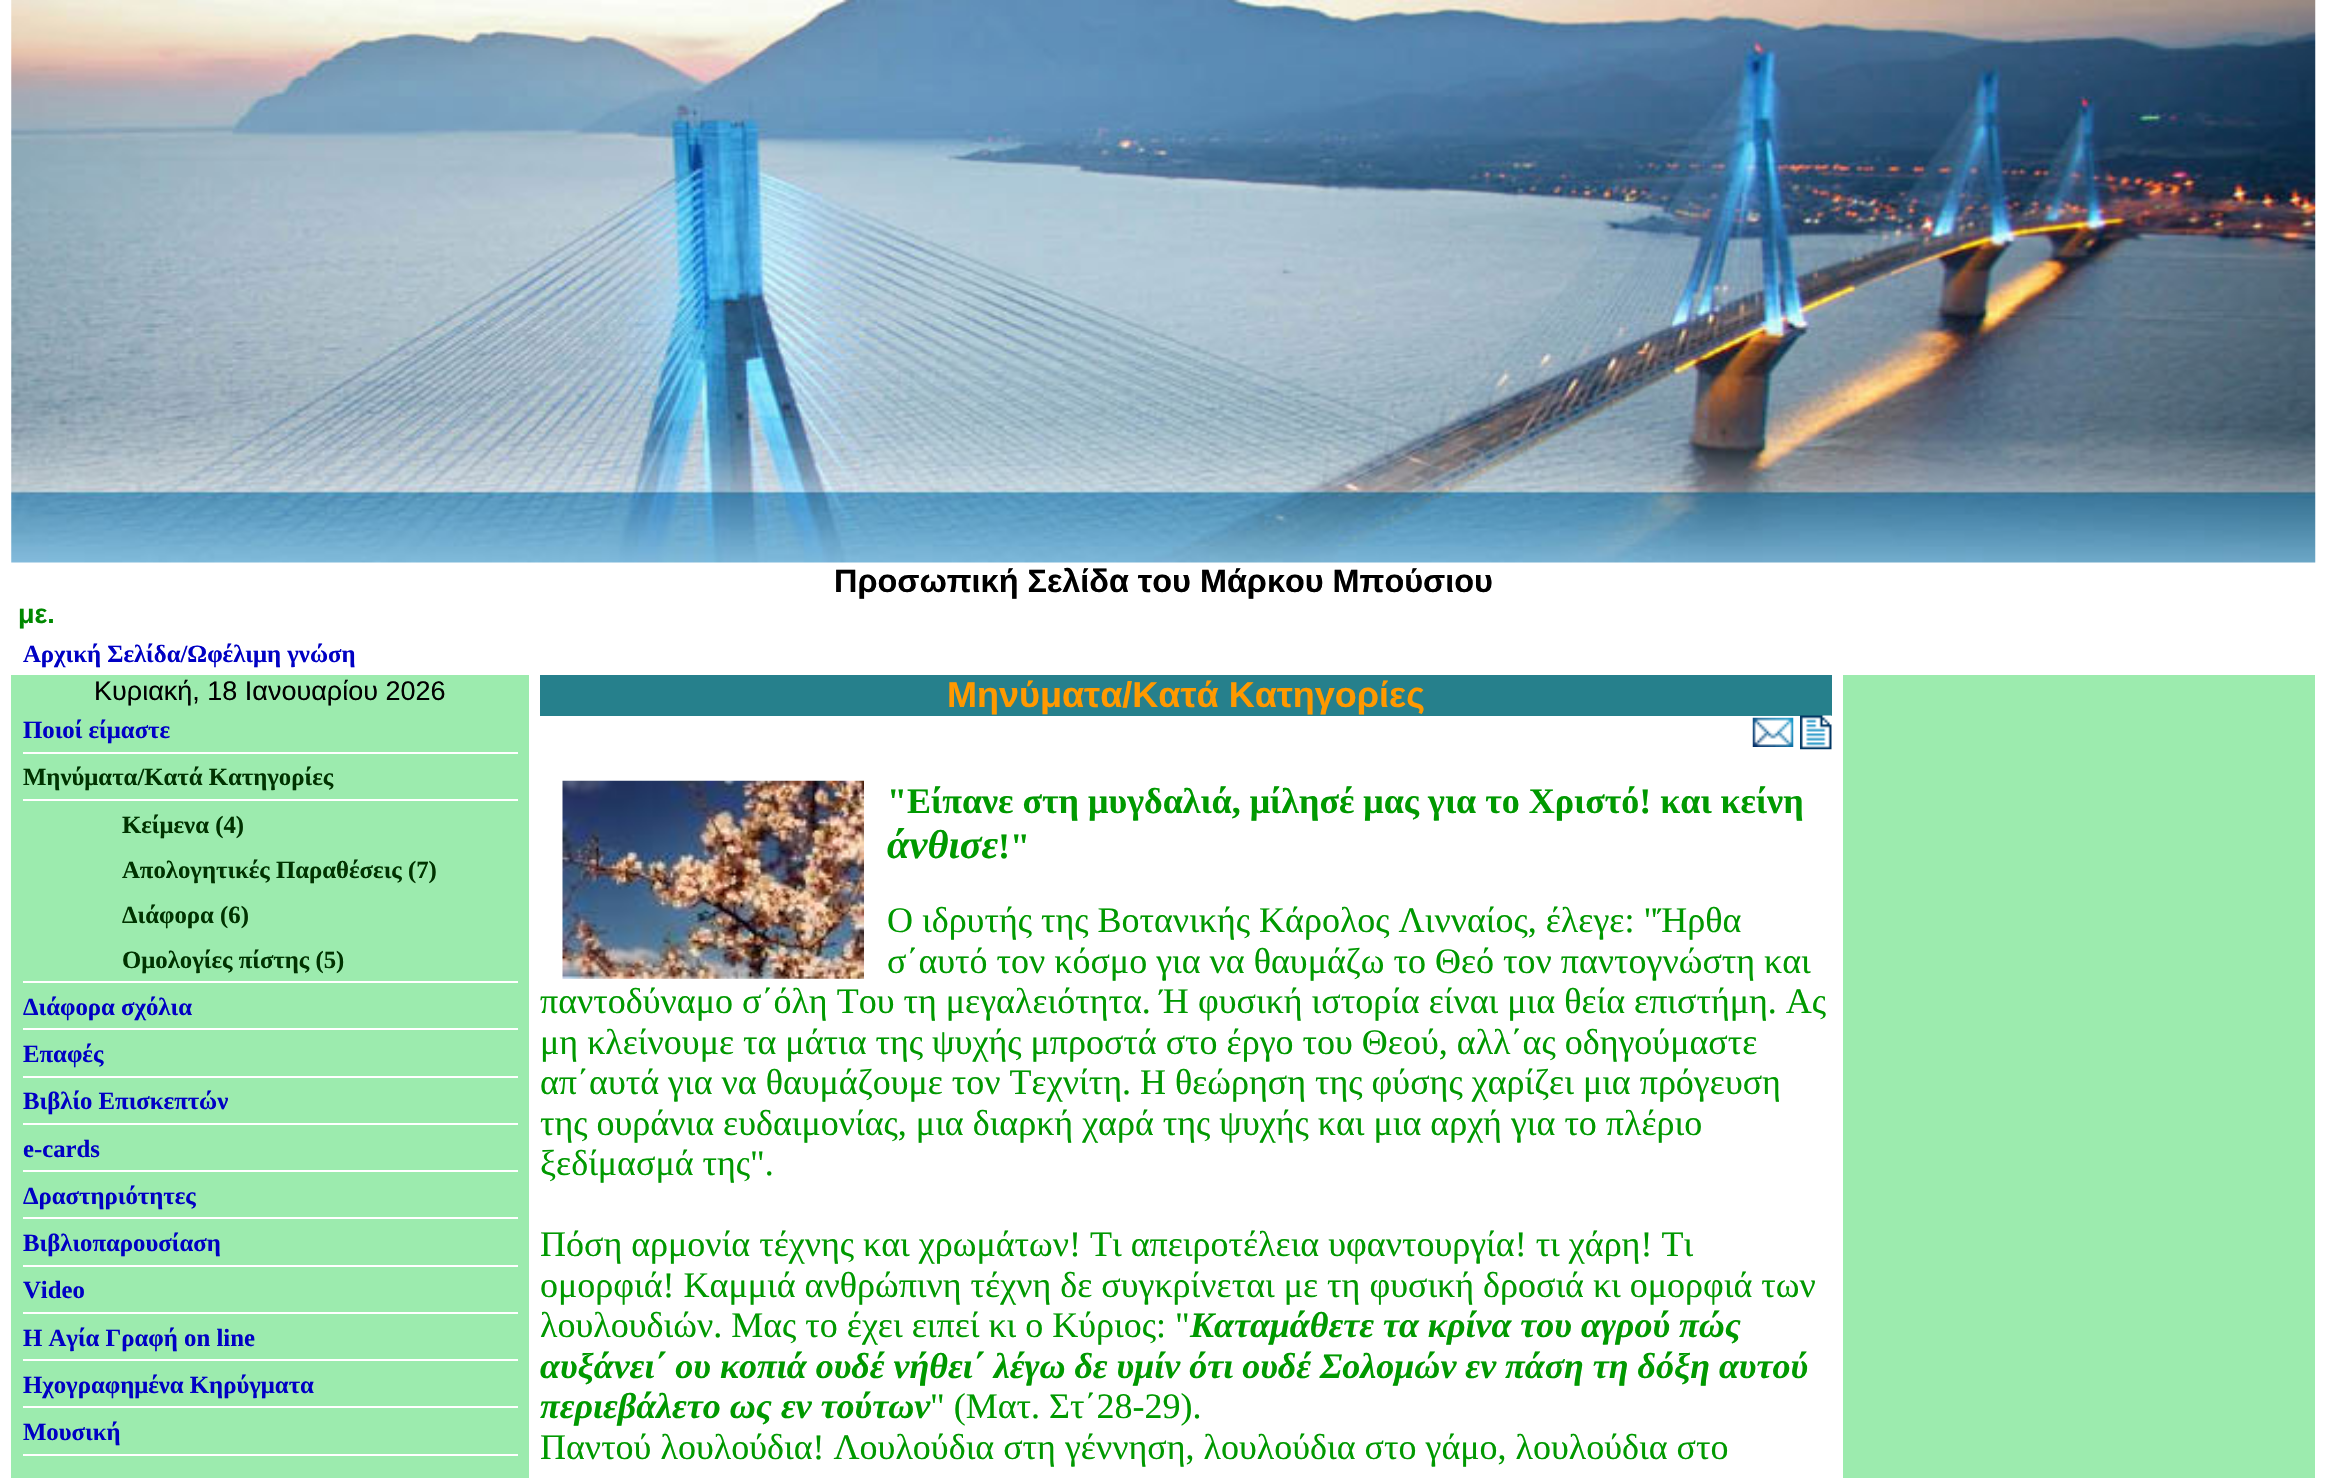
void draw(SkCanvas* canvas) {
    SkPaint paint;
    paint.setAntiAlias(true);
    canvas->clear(0xFFFFFFFF);
    canvas->drawImageRect(SkImages::DeferredFromEncodedData(SkData::MakeFromFileName("img1.png")), SkRect::MakeXYWH(11, 0, 2305, 563), SkSamplingOptions());
    SkFont font1(fontMgr->matchFamilyStyle("Liberation Sans", SkFontStyle::Bold()), 32.4f);
    font1.setSubpixel(true);
    paint.setColor(0xFF000000);
    canvas->drawString("Προσωπική Σελίδα του Μάρκου Μπούσιου", 834, 592, font1, paint);
    SkFont font2(fontMgr->matchFamilyStyle("Liberation Sans", SkFontStyle::Bold()), 27);
    font2.setSubpixel(true);
    paint.setColor(0xFF008800);
    canvas->drawString("με.", 18, 623, font2, paint);
    SkFont font3(fontMgr->matchFamilyStyle("Liberation Serif", SkFontStyle::Bold()), 24.75f);
    font3.setSubpixel(true);
    paint.setColor(0xFF0000C4);
    canvas->drawString("Αρχική Σελίδα/Ωφέλιμη γνώση", 23, 662, font3, paint);
    paint.setColor(0xFF9CEBAE);
    canvas->drawRect(SkRect::MakeXYWH(11, 675, 518, 803), paint);
    SkFont font4(fontMgr->matchFamilyStyle("Liberation Sans", SkFontStyle::Normal()), 27);
    font4.setSubpixel(true);
    paint.setColor(0xFF000000);
    canvas->drawString("Κυριακή, 18 Ιανουαρίου 2026", 94, 700, font4, paint);
    paint.setColor(0xFF0000C4);
    canvas->drawString("Ποιοί είμαστε", 23, 738, font3, paint);
    paint.setColor(0xFFFFFFFF);
    canvas->drawRect(SkRect::MakeXYWH(23, 752, 495, 2), paint);
    paint.setColor(0xFF003300);
    canvas->drawString("Μηνύματα/Kατά Κατηγορίες", 23, 785, font3, paint);
    paint.setColor(0xFFFFFFFF);
    canvas->drawRect(SkRect::MakeXYWH(23, 799, 495, 2), paint);
    paint.setColor(0xFF003300);
    canvas->drawString("Κείμενα (4)", 122, 833, font3, paint);
    canvas->drawString("Απολογητικές Παραθέσεις (7)", 122, 878, font3, paint);
    canvas->drawString("Διάφορα (6)", 122, 923, font3, paint);
    canvas->drawString("Ομολογίες πίστης (5)", 122, 968, font3, paint);
    paint.setColor(0xFFFFFFFF);
    canvas->drawRect(SkRect::MakeXYWH(23, 981, 495, 2), paint);
    paint.setColor(0xFF0000C4);
    canvas->drawString("Διάφορα σχόλια", 23, 1015, font3, paint);
    paint.setColor(0xFFFFFFFF);
    canvas->drawRect(SkRect::MakeXYWH(23, 1028, 495, 2), paint);
    paint.setColor(0xFF0000C4);
    canvas->drawString("Επαφές", 23, 1062, font3, paint);
    paint.setColor(0xFFFFFFFF);
    canvas->drawRect(SkRect::MakeXYWH(23, 1076, 495, 2), paint);
    paint.setColor(0xFF0000C4);
    canvas->drawString("Βιβλίο Επισκεπτών", 23, 1109, font3, paint);
    paint.setColor(0xFFFFFFFF);
    canvas->drawRect(SkRect::MakeXYWH(23, 1123, 495, 2), paint);
    paint.setColor(0xFF0000C4);
    canvas->drawString("e-cards", 23, 1157, font3, paint);
    paint.setColor(0xFFFFFFFF);
    canvas->drawRect(SkRect::MakeXYWH(23, 1170, 495, 2), paint);
    paint.setColor(0xFF0000C4);
    canvas->drawString("Δραστηριότητες", 23, 1204, font3, paint);
    paint.setColor(0xFFFFFFFF);
    canvas->drawRect(SkRect::MakeXYWH(23, 1217, 495, 2), paint);
    paint.setColor(0xFF0000C4);
    canvas->drawString("Βιβλιοπαρουσίαση", 23, 1251, font3, paint);
    paint.setColor(0xFFFFFFFF);
    canvas->drawRect(SkRect::MakeXYWH(23, 1265, 495, 2), paint);
    paint.setColor(0xFF0000C4);
    canvas->drawString("Video", 23, 1298, font3, paint);
    paint.setColor(0xFFFFFFFF);
    canvas->drawRect(SkRect::MakeXYWH(23, 1312, 495, 2), paint);
    paint.setColor(0xFF0000C4);
    canvas->drawString("Η Αγία Γραφή on line", 23, 1346, font3, paint);
    paint.setColor(0xFFFFFFFF);
    canvas->drawRect(SkRect::MakeXYWH(23, 1359, 495, 2), paint);
    paint.setColor(0xFF0000C4);
    canvas->drawString("Ηχογραφημένα Κηρύγματα", 23, 1393, font3, paint);
    paint.setColor(0xFFFFFFFF);
    canvas->drawRect(SkRect::MakeXYWH(23, 1406, 495, 2), paint);
    paint.setColor(0xFF0000C4);
    canvas->drawString("Μουσική", 23, 1440, font3, paint);
    paint.setColor(0xFFFFFFFF);
    canvas->drawRect(SkRect::MakeXYWH(23, 1454, 495, 2), paint);
    paint.setColor(0xFF26808C);
    canvas->drawRect(SkRect::MakeXYWH(540, 675, 1292, 41), paint);
    SkFont font5(fontMgr->matchFamilyStyle("Liberation Sans", SkFontStyle::Bold()), 36);
    font5.setSubpixel(true);
    paint.setColor(0xFFFF9900);
    canvas->drawString("Μηνύματα/Kατά Κατηγορίες", 947, 707, font5, paint);
    canvas->drawImageRect(SkImages::DeferredFromEncodedData(SkData::MakeFromFileName("img2.png")), SkRect::MakeXYWH(1752, 717, 42, 30), SkSamplingOptions());
    canvas->drawImageRect(SkImages::DeferredFromEncodedData(SkData::MakeFromFileName("img3.png")), SkRect::MakeXYWH(1800, 715, 32, 35), SkSamplingOptions());
    canvas->drawImageRect(SkImages::DeferredFromEncodedData(SkData::MakeFromFileName("img4.png")), SkRect::MakeXYWH(562, 780, 302, 199), SkSamplingOptions());
    SkFont font6(fontMgr->matchFamilyStyle("Liberation Serif", SkFontStyle::Bold()), 36);
    font6.setSubpixel(true);
    paint.setColor(0xFF009900);
    canvas->drawString("\"Eίπανε στη μυγδαλιά, μίλησέ μας για το Χριστό! και κείνη", 887, 813, font6, paint);
    SkFont font7(fontMgr->matchFamilyStyle("Liberation Serif", SkFontStyle::BoldItalic()), 40.5f);
    font7.setSubpixel(true);
    canvas->drawString("άνθισε", 887, 858, font7, paint);
    canvas->drawString("!\"", 998, 858, font6, paint);
    SkFont font8(fontMgr->matchFamilyStyle("Liberation Serif", SkFontStyle::Normal()), 36);
    font8.setSubpixel(true);
    canvas->drawString("Ο ιδρυτής της Βοτανικής Κάρολος Λινναίος, έλεγε: \"Ήρθα", 887, 932, font8, paint);
    canvas->drawString("σ΄αυτό τον κόσμο για να θαυμάζω το Θεό τον παντογνώστη και", 887, 973, font8, paint);
    canvas->drawString("παντοδύναμο σ΄όλη Του τη μεγαλειότητα. Ή φυσική ιστορία είναι μια θεία επιστήμη. Ας", 540, 1013, font8, paint);
    canvas->drawString("μη κλείνουμε τα μάτια της ψυχής μπροστά στο έργο του Θεού, αλλ΄ας οδηγούμαστε", 540, 1054, font8, paint);
    canvas->drawString("απ΄αυτά για να θαυμάζουμε τον Τεχνίτη. Η θεώρηση της φύσης χαρίζει μια πρόγευση", 540, 1094, font8, paint);
    canvas->drawString("της ουράνια ευδαιμονίας, μια διαρκή χαρά της ψυχής και μια αρχή για το πλέριο", 540, 1135, font8, paint);
    canvas->drawString("ξεδίμασμά της\".", 540, 1175, font8, paint);
    canvas->drawString("Πόση αρμονία τέχνης και χρωμάτων! Τι απειροτέλεια υφαντουργία! τι χάρη! Τι", 540, 1256, font8, paint);
    canvas->drawString("ομορφιά! Καμμιά ανθρώπινη τέχνη δε συγκρίνεται με τη φυσική δροσιά κι ομορφιά των", 540, 1297, font8, paint);
    canvas->drawString("λουλουδιών. Μας το έχει ειπεί κι ο Κύριος: \"", 540, 1337, font8, paint);
    SkFont font9(fontMgr->matchFamilyStyle("Liberation Serif", SkFontStyle::BoldItalic()), 36);
    font9.setSubpixel(true);
    canvas->drawString("Καταμάθετε τα κρίνα του αγρού πώς", 1190, 1337, font9, paint);
    canvas->drawString("αυξάνει΄ ου κοπιά ουδέ νήθει΄ λέγω δε υμίν ότι ουδέ Σολομών εν πάση τη δόξη αυτού", 540, 1378, font9, paint);
    canvas->drawString("περιεβάλετο ως εν τούτων", 540, 1418, font9, paint);
    canvas->drawString("\" (Ματ. Στ΄28-29).", 930, 1418, font8, paint);
    canvas->drawString("Παντού λουλούδια! Λουλούδια στη γέννηση, λουλούδια στο γάμο, λουλούδια στο", 540, 1459, font8, paint);
    paint.setColor(0xFF9CEBAE);
    canvas->drawRect(SkRect::MakeXYWH(1843, 675, 472, 803), paint);
}
